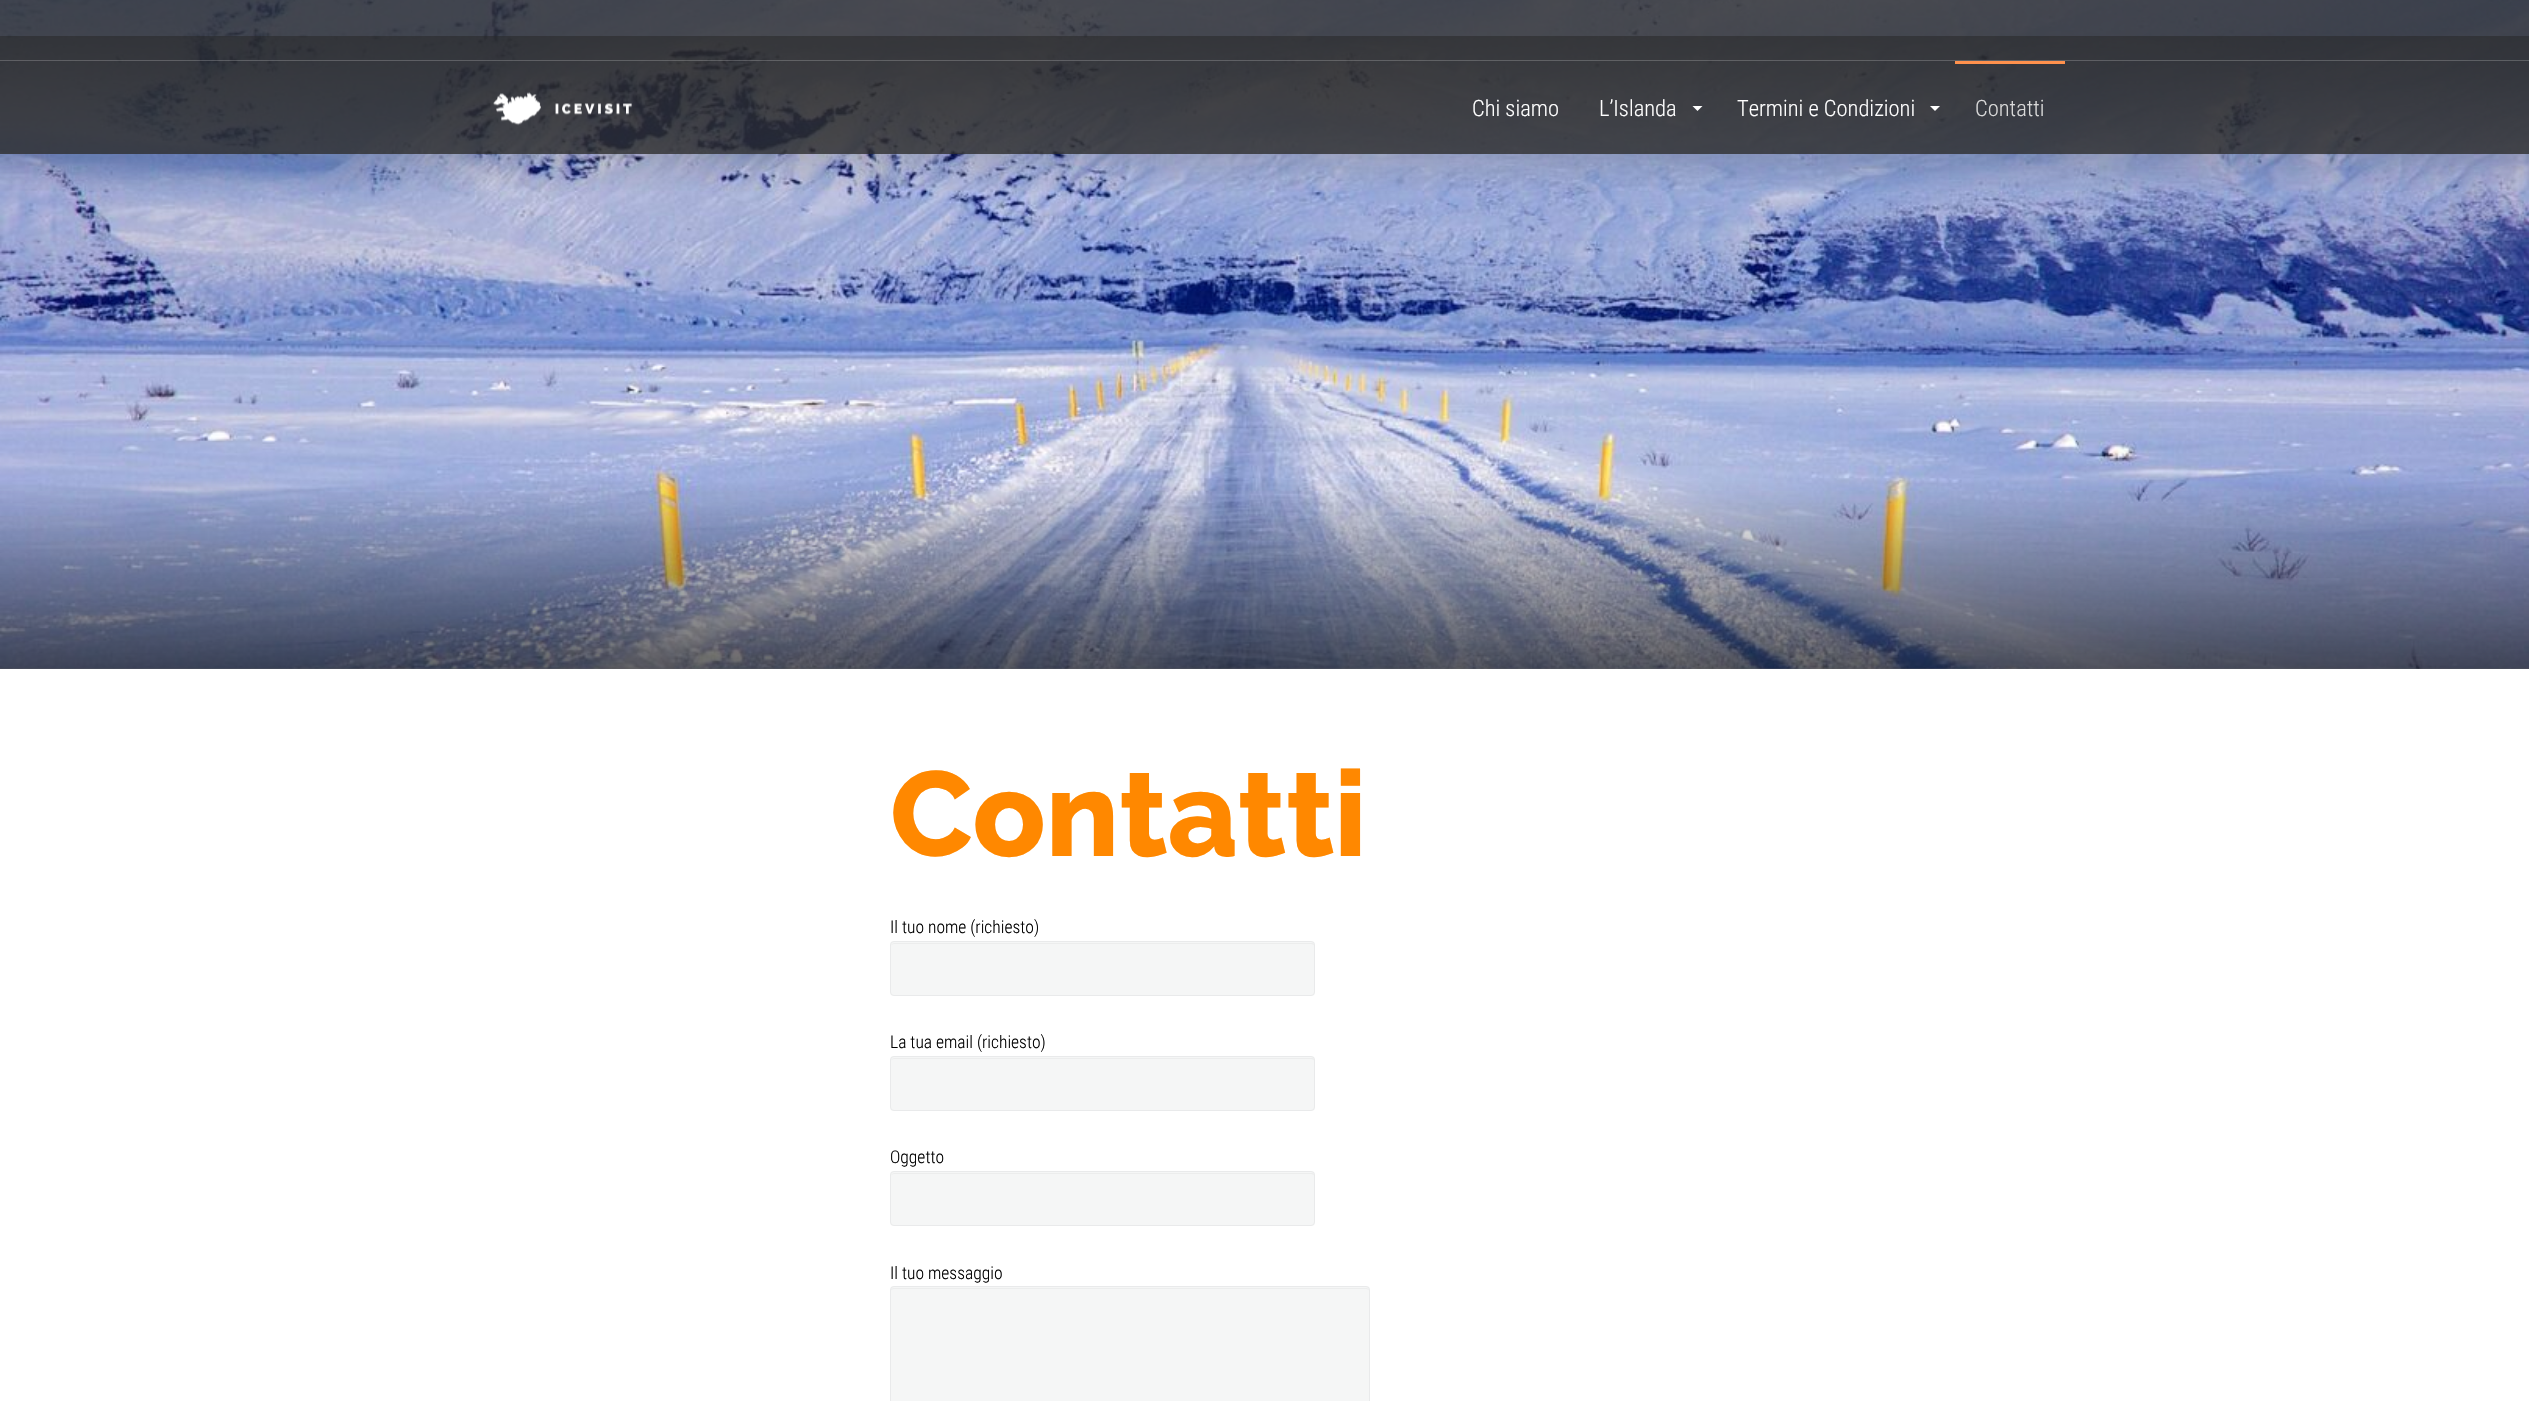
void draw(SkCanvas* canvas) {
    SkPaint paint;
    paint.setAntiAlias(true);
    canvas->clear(0xFFFFFFFF);
    canvas->drawImageRect(SkImages::DeferredFromEncodedData(SkData::MakeFromFileName("img1.png")), SkRect::MakeXYWH(0, 0, 2529, 669), SkSamplingOptions());
    {
        const SkColor colors[] = {0x80000000, 0x00000000, 0x00000000, 0x99000000};
        const float stops[] = {0, 0.25f, 0.7f, 1};
        const SkPoint ends[] = {{1265, 36}, {1265, 669}};
        paint.setShader(SkGradientShader::MakeLinear(ends, colors, stops, 4, SkTileMode::kClamp));
        paint.setAlpha(255);
    }
    canvas->drawRect(SkRect::MakeXYWH(0, 36, 2529, 633), paint);
    paint.setShader(nullptr);
    paint.setColor(0xCC2D2D2D);
    canvas->drawRect(SkRect::MakeXYWH(0, 0, 2529, 154), paint);
    paint.setColor(0x33FFFFFF);
    canvas->drawRect(SkRect::MakeXYWH(0, 60, 2529, 1), paint);
    canvas->drawImageRect(SkImages::DeferredFromEncodedData(SkData::MakeFromFileName("img2.png")), SkRect::MakeXYWH(493, 92, 139, 34), SkSamplingOptions());
    SkFont font1(fontMgr->matchFamilyStyle("Roboto Condensed", SkFontStyle(300, SkFontStyle::kNormal_Width, SkFontStyle::kUpright_Slant)), 22.5f);
    font1.setSubpixel(true);
    paint.setColor(0xFFFFFFFF);
    canvas->drawString("Chi siamo", 1472, 116, font1, paint);
    canvas->drawString("L’Islanda", 1599, 116, font1, paint);
    canvas->drawPath(SkPathBuilder().moveTo(1692.5f, 106).lineTo(1702.5f, 106).lineTo(1697.5f, 111).close().detach(), paint);
    canvas->drawString("Termini e Condizioni", 1737, 116, font1, paint);
    canvas->drawPath(SkPathBuilder().moveTo(1930, 106).lineTo(1940, 106).lineTo(1935, 111).close().detach(), paint);
    paint.setColor(0xFFFF914D);
    canvas->drawRect(SkRect::MakeXYWH(1955, 61, 110, 3), paint);
    paint.setColor(0xFFD9D9D9);
    canvas->drawString("Contatti", 1975, 116, font1, paint);
    SkFont font2(fontMgr->matchFamilyStyle("Raleway", SkFontStyle(100, SkFontStyle::kNormal_Width, SkFontStyle::kUpright_Slant)), 120);
    font2.setSubpixel(true);
    paint.setColor(0xFFFF8800);
    canvas->drawString("Contatti", 890, 856, font2, paint);
    SkFont font3(fontMgr->matchFamilyStyle("Roboto Condensed", SkFontStyle(300, SkFontStyle::kNormal_Width, SkFontStyle::kUpright_Slant)), 17.5f);
    font3.setSubpixel(true);
    paint.setColor(0xFF000000);
    canvas->drawString("Il tuo nome (richiesto)", 890, 933, font3, paint);
    paint.setColor(0xFFF5F6F6);
    canvas->drawRoundRect(SkRect::MakeXYWH(890, 941, 425, 55), 4, 4, paint);
    paint.setColor(0xFFECEDED);
    canvas->drawPath(SkPathBuilder().moveTo(894, 944).lineTo(1311, 944).cubicTo(1313, 944, 1314, 945, 1314, 946).cubicTo(1314, 944, 1313, 943, 1312, 943).lineTo(894, 943).lineTo(892, 944).lineTo(891, 946).cubicTo(891, 945, 892, 944, 894, 944).close().detach(), paint);
    paint.setStyle(SkPaint::kStroke_Style);
    paint.setStrokeWidth(1);
    paint.setColor(0xFFE9EAEB);
    canvas->drawRoundRect(SkRect::MakeXYWH(890.5f, 941.5f, 424, 54), 3.5f, 3.5f, paint);
    paint.setStyle(SkPaint::kFill_Style);
    paint.setColor(0xFF000000);
    canvas->drawString("La tua email (richiesto)", 890, 1048, font3, paint);
    paint.setColor(0xFFF5F6F6);
    canvas->drawRoundRect(SkRect::MakeXYWH(890, 1056, 425, 55), 4, 4, paint);
    paint.setColor(0xFFECEDED);
    canvas->drawPath(SkPathBuilder().moveTo(894, 1059).lineTo(1311, 1059).cubicTo(1313, 1059, 1314, 1060, 1314, 1061).cubicTo(1314, 1059, 1313, 1058, 1312, 1058).lineTo(894, 1058).lineTo(892, 1059).lineTo(891, 1061).cubicTo(891, 1060, 892, 1059, 894, 1059).close().detach(), paint);
    paint.setStyle(SkPaint::kStroke_Style);
    paint.setColor(0xFFE9EAEB);
    canvas->drawRoundRect(SkRect::MakeXYWH(890.5f, 1056.5f, 424, 54), 3.5f, 3.5f, paint);
    paint.setStyle(SkPaint::kFill_Style);
    paint.setColor(0xFF000000);
    canvas->drawString("Oggetto", 890, 1163, font3, paint);
    paint.setColor(0xFFF5F6F6);
    canvas->drawRoundRect(SkRect::MakeXYWH(890, 1171, 425, 55), 4, 4, paint);
    paint.setColor(0xFFECEDED);
    canvas->drawPath(SkPathBuilder().moveTo(894, 1174).lineTo(1311, 1174).cubicTo(1313, 1174, 1314, 1175, 1314, 1176).cubicTo(1314, 1174, 1313, 1173, 1312, 1173).lineTo(894, 1173).lineTo(892, 1174).lineTo(891, 1176).cubicTo(891, 1175, 892, 1174, 894, 1174).close().detach(), paint);
    paint.setStyle(SkPaint::kStroke_Style);
    paint.setColor(0xFFE9EAEB);
    canvas->drawRoundRect(SkRect::MakeXYWH(890.5f, 1171.5f, 424, 54), 3.5f, 3.5f, paint);
    paint.setStyle(SkPaint::kFill_Style);
    paint.setColor(0xFF000000);
    canvas->drawString("Il tuo messaggio", 890, 1279, font3, paint);
    paint.setColor(0xFFF5F6F6);
    canvas->drawRoundRect(SkRect::MakeXYWH(890, 1286, 480, 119), 4, 4, paint);
    paint.setColor(0xFFECEDED);
    canvas->drawPath(SkPathBuilder().moveTo(894, 1289).lineTo(1366, 1289).cubicTo(1368, 1289, 1369, 1290, 1369, 1291).cubicTo(1369, 1289, 1368, 1288, 1366, 1288).lineTo(894, 1288).cubicTo(892, 1288, 891, 1289, 891, 1291).cubicTo(891, 1290, 892, 1289, 894, 1289).close().detach(), paint);
    paint.setStyle(SkPaint::kStroke_Style);
    paint.setColor(0xFFE9EAEB);
    canvas->drawRoundRect(SkRect::MakeXYWH(890.5f, 1286.5f, 479, 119), 3.5f, 3.5f, paint);
}
